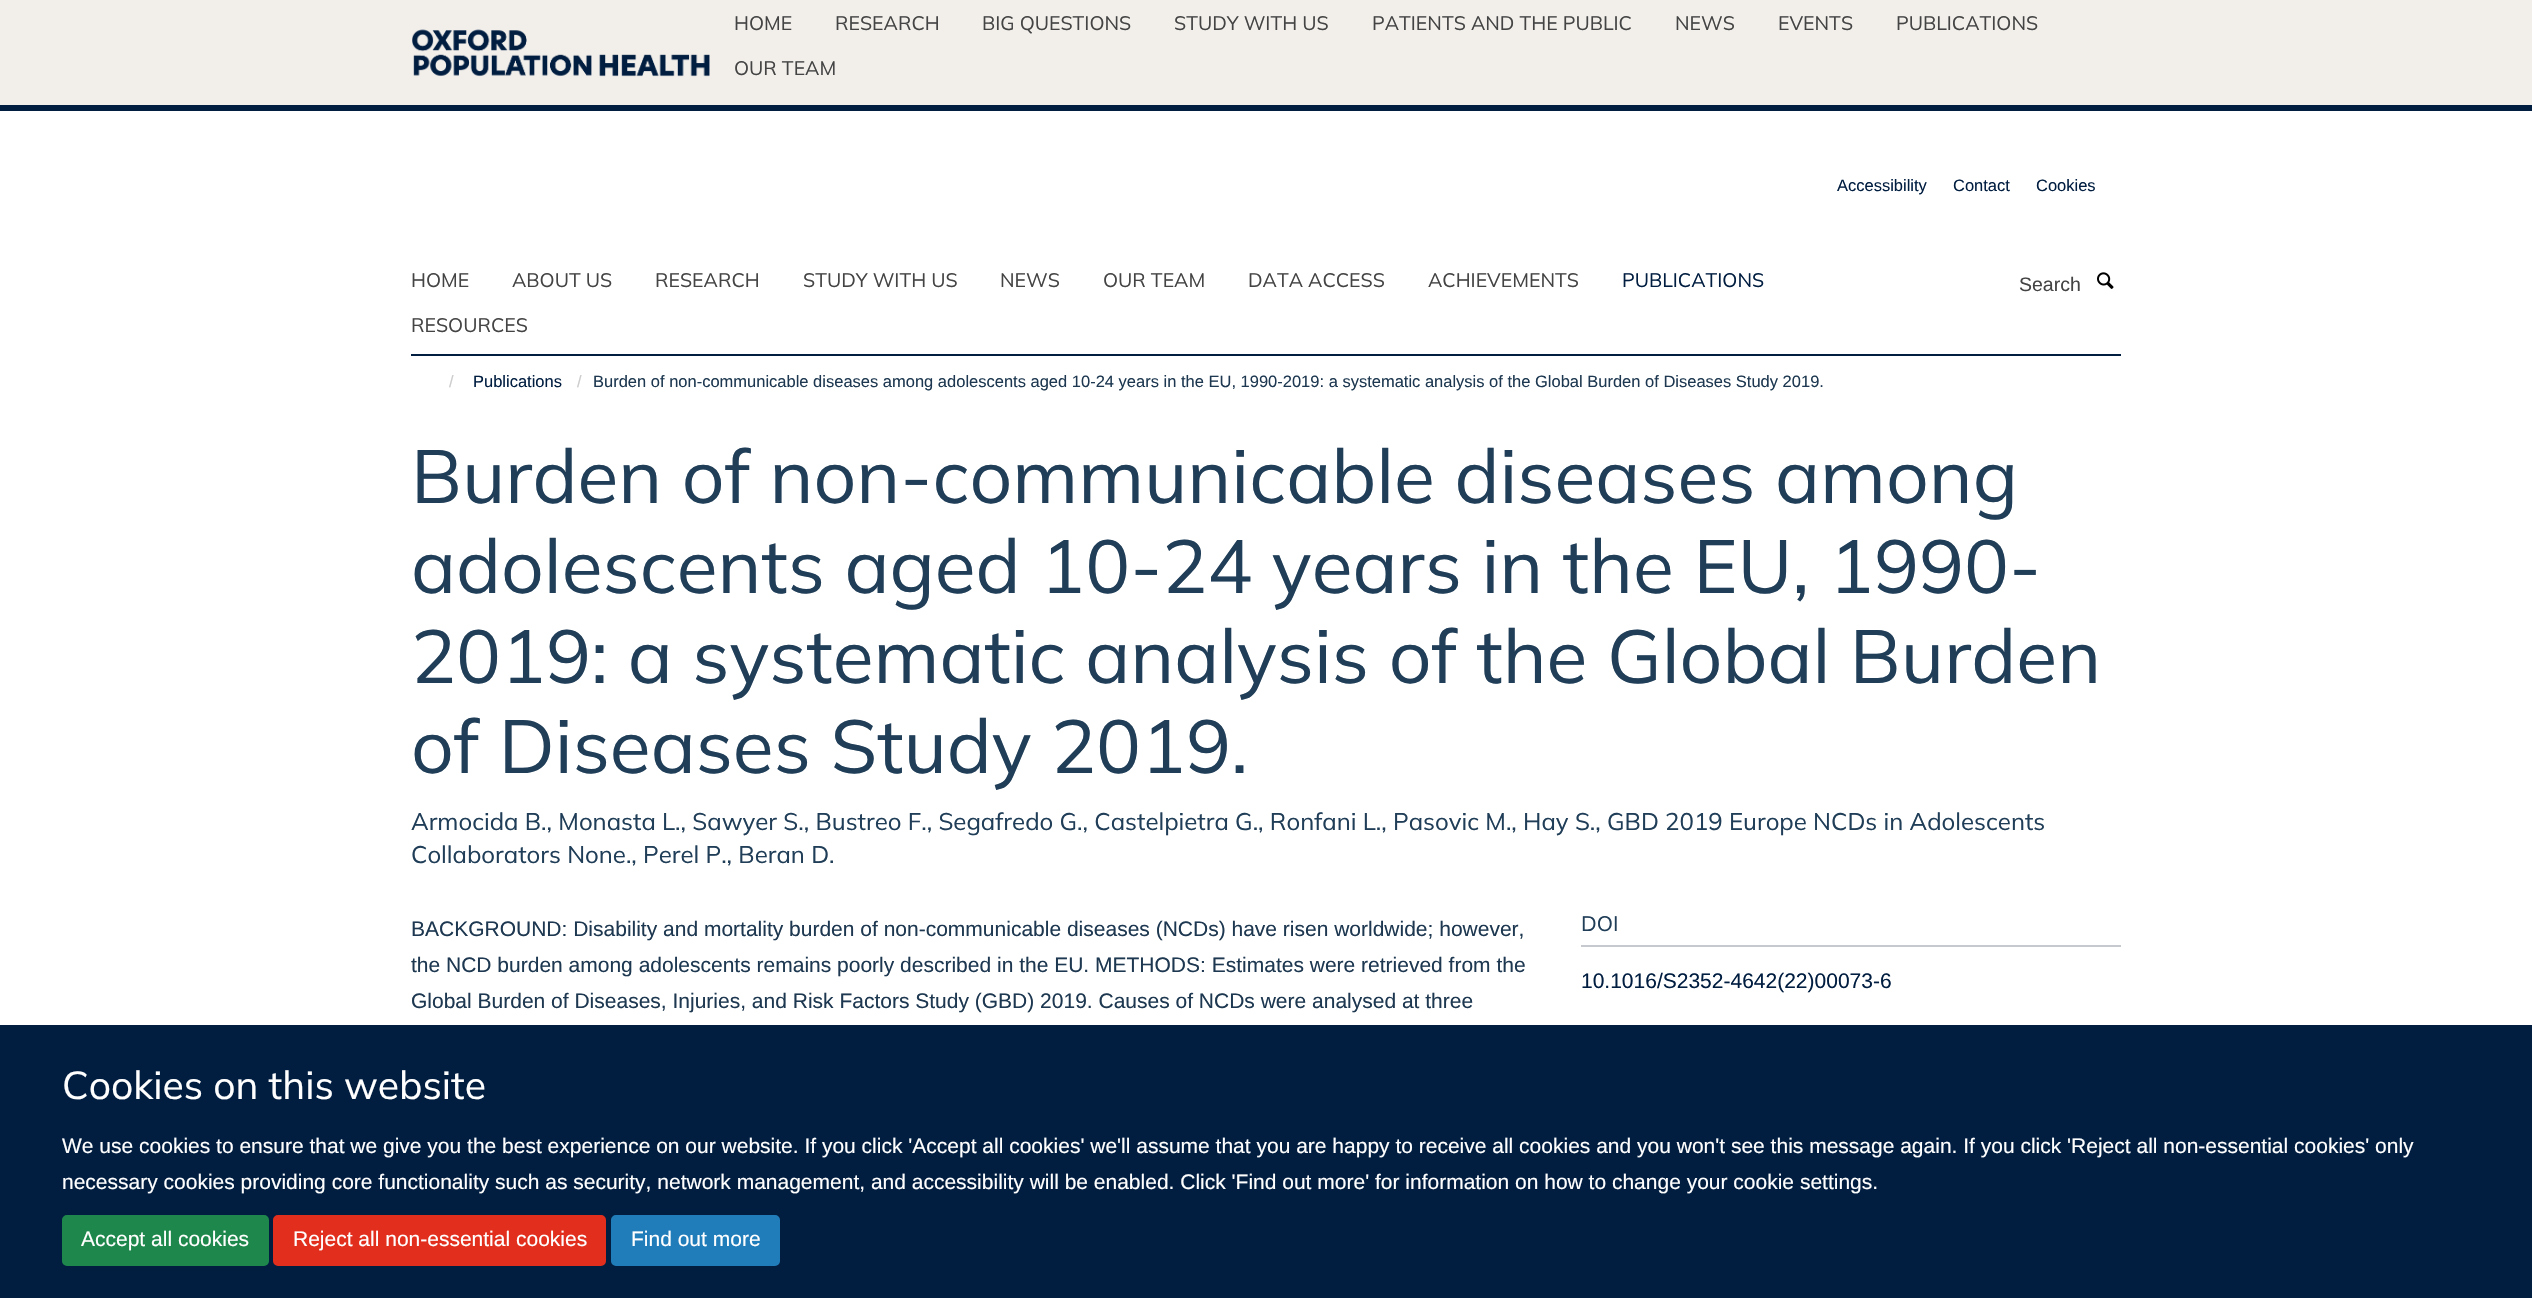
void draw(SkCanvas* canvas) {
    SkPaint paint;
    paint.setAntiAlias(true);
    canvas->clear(0xFFFFFFFF);
    paint.setColor(0xFFF2EFEB);
    canvas->drawRect(SkRect::MakeXYWH(0, 0, 2532, 105), paint);
    paint.setColor(0xFF011E41);
    canvas->drawRect(SkRect::MakeXYWH(0, 105, 2532, 6), paint);
    canvas->drawImageRect(SkImages::DeferredFromEncodedData(SkData::MakeFromFileName("img1.png")), SkRect::MakeXYWH(412, 29, 298, 48), SkSamplingOptions());
    SkFont font1(fontMgr->matchFamilyStyle("Mulish", SkFontStyle::Normal()), 19.5f);
    font1.setSubpixel(true);
    paint.setColor(0xFF444444);
    canvas->drawString("HOME", 734, 30, font1, paint);
    canvas->drawString("RESEARCH", 835, 30, font1, paint);
    canvas->drawString("BIG QUESTIONS", 982, 30, font1, paint);
    canvas->drawString("STUDY WITH US", 1174, 30, font1, paint);
    canvas->drawString("PATIENTS AND THE PUBLIC", 1372, 30, font1, paint);
    canvas->drawString("NEWS", 1675, 30, font1, paint);
    canvas->drawString("EVENTS", 1778, 30, font1, paint);
    canvas->drawString("PUBLICATIONS", 1896, 30, font1, paint);
    canvas->drawString("OUR TEAM", 734, 75, font1, paint);
    SkFont font2(fontMgr->matchFamilyStyle("Liberation Sans", SkFontStyle::Normal()), 16.5f);
    font2.setSubpixel(true);
    paint.setColor(0xFF011E41);
    canvas->drawString("Accessibility", 1837, 191, font2, paint);
    canvas->drawString("Contact", 1953, 191, font2, paint);
    canvas->drawString("Cookies", 2036, 191, font2, paint);
    canvas->drawRect(SkRect::MakeXYWH(411, 354, 1710, 2), paint);
    paint.setColor(0xFF444444);
    canvas->drawString("HOME", 411, 287, font1, paint);
    canvas->drawString("ABOUT US", 512, 287, font1, paint);
    canvas->drawString("RESEARCH", 655, 287, font1, paint);
    canvas->drawString("STUDY WITH US", 803, 287, font1, paint);
    canvas->drawString("NEWS", 1000, 287, font1, paint);
    canvas->drawString("OUR TEAM", 1103, 287, font1, paint);
    canvas->drawString("DATA ACCESS", 1248, 287, font1, paint);
    canvas->drawString("ACHIEVEMENTS", 1428, 287, font1, paint);
    paint.setColor(0xFF011E41);
    canvas->drawString("PUBLICATIONS", 1622, 287, font1, paint);
    paint.setColor(0xFF444444);
    canvas->drawString("RESOURCES", 411, 332, font1, paint);
    SkFont font3(fontMgr->matchFamilyStyle("Liberation Sans", SkFontStyle::Normal()), 19.5f);
    font3.setSubpixel(true);
    canvas->drawString("Search", 2019, 291, font3, paint);
    canvas->drawImageRect(SkImages::DeferredFromEncodedData(SkData::MakeFromFileName("img2.png")), SkRect::MakeXYWH(2097, 272, 17, 17), SkSamplingOptions());
    paint.setColor(0xFFCCCCCC);
    canvas->drawString("/", 449, 387, font2, paint);
    paint.setColor(0xFF011E41);
    canvas->drawString("Publications", 473, 387, font2, paint);
    paint.setColor(0xFFCCCCCC);
    canvas->drawString("/", 577, 387, font2, paint);
    paint.setColor(0xFF1D3850);
    canvas->drawString("Burden of non-communicable diseases among adolescents aged 10-24 years in the EU, 1990-2019: a systematic analysis of the Global Burden of Diseases Study 2019.", 593, 387, font2, paint);
    SkFont font4(fontMgr->matchFamilyStyle("Mulish", SkFontStyle::Normal()), 75);
    font4.setSubpixel(true);
    paint.setColor(0xFF203E58);
    canvas->drawString("Burden of non-communicable diseases among", 411, 503, font4, paint);
    canvas->drawString("adolescents aged 10-24 years in the EU, 1990-", 411, 593, font4, paint);
    canvas->drawString("2019: a systematic analysis of the Global Burden", 411, 683, font4, paint);
    canvas->drawString("of Diseases Study 2019.", 411, 773, font4, paint);
    SkFont font5(fontMgr->matchFamilyStyle("Mulish", SkFontStyle::Normal()), 24);
    font5.setSubpixel(true);
    canvas->drawString("Armocida B., Monasta L., Sawyer S., Bustreo F., Segafredo G., Castelpietra G., Ronfani L., Pasovic M., Hay S., GBD 2019 Europe NCDs in Adolescents", 411, 830, font5, paint);
    canvas->drawString("Collaborators None., Perel P., Beran D.", 411, 863, font5, paint);
    SkFont font6(fontMgr->matchFamilyStyle("Liberation Sans", SkFontStyle::Normal()), 21);
    font6.setSubpixel(true);
    paint.setColor(0xFF1D3850);
    canvas->drawString("BACKGROUND: Disability and mortality burden of non-communicable diseases (NCDs) have risen worldwide; however,", 411, 936, font6, paint);
    canvas->drawString("the NCD burden among adolescents remains poorly described in the EU. METHODS: Estimates were retrieved from the", 411, 972, font6, paint);
    canvas->drawString("Global Burden of Diseases, Injuries, and Risk Factors Study (GBD) 2019. Causes of NCDs were analysed at three", 411, 1008, font6, paint);
    paint.setColor(0xFFC6CACF);
    canvas->drawRect(SkRect::MakeXYWH(1581, 945, 540, 2), paint);
    SkFont font7(fontMgr->matchFamilyStyle("Mulish", SkFontStyle::Normal()), 21);
    font7.setSubpixel(true);
    paint.setColor(0xFF203E58);
    canvas->drawString("DOI", 1581, 931, font7, paint);
    paint.setColor(0xFF011E41);
    canvas->drawString("10.1016/S2352-4642(22)00073-6", 1581, 988, font6, paint);
    canvas->drawRect(SkRect::MakeXYWH(0, 1025, 2532, 273), paint);
    SkFont font8(fontMgr->matchFamilyStyle("Mulish", SkFontStyle::Normal()), 39);
    font8.setSubpixel(true);
    paint.setColor(0xFFFFFFFF);
    canvas->drawString("Cookies on this website", 62, 1099, font8, paint);
    canvas->drawString("We use cookies to ensure that we give you the best experience on our website. If you click 'Accept all cookies' we'll assume that you are happy to receive all cookies and you won't see this message again. If you click 'Reject all non-essential cookies' only", 62, 1153, font6, paint);
    canvas->drawString("necessary cookies providing core functionality such as security, network management, and accessibility will be enabled. Click 'Find out more' for information on how to change your cookie settings.", 62, 1189, font6, paint);
    paint.setColor(0xFF1E874B);
    canvas->drawRoundRect(SkRect::MakeXYWH(63, 1216, 205, 49), 4, 4, paint);
    paint.setStyle(SkPaint::kStroke_Style);
    paint.setStrokeWidth(2);
    canvas->drawRoundRect(SkRect::MakeXYWH(63, 1216, 205, 49), 4, 4, paint);
    paint.setStyle(SkPaint::kFill_Style);
    paint.setColor(0xFFFFFFFF);
    canvas->drawString("Accept all cookies", 81, 1246, font6, paint);
    paint.setColor(0xFFE22E1C);
    canvas->drawRoundRect(SkRect::MakeXYWH(274, 1216, 331, 49), 4, 4, paint);
    paint.setStyle(SkPaint::kStroke_Style);
    canvas->drawRoundRect(SkRect::MakeXYWH(274, 1216, 331, 49), 4, 4, paint);
    paint.setStyle(SkPaint::kFill_Style);
    paint.setColor(0xFFFFFFFF);
    canvas->drawString("Reject all non-essential cookies", 293, 1246, font6, paint);
    paint.setColor(0xFF217CBA);
    canvas->drawRoundRect(SkRect::MakeXYWH(612, 1216, 167, 49), 4, 4, paint);
    paint.setStyle(SkPaint::kStroke_Style);
    canvas->drawRoundRect(SkRect::MakeXYWH(612, 1216, 167, 49), 4, 4, paint);
    paint.setStyle(SkPaint::kFill_Style);
    paint.setColor(0xFFFFFFFF);
    canvas->drawString("Find out more", 631, 1246, font6, paint);
}
